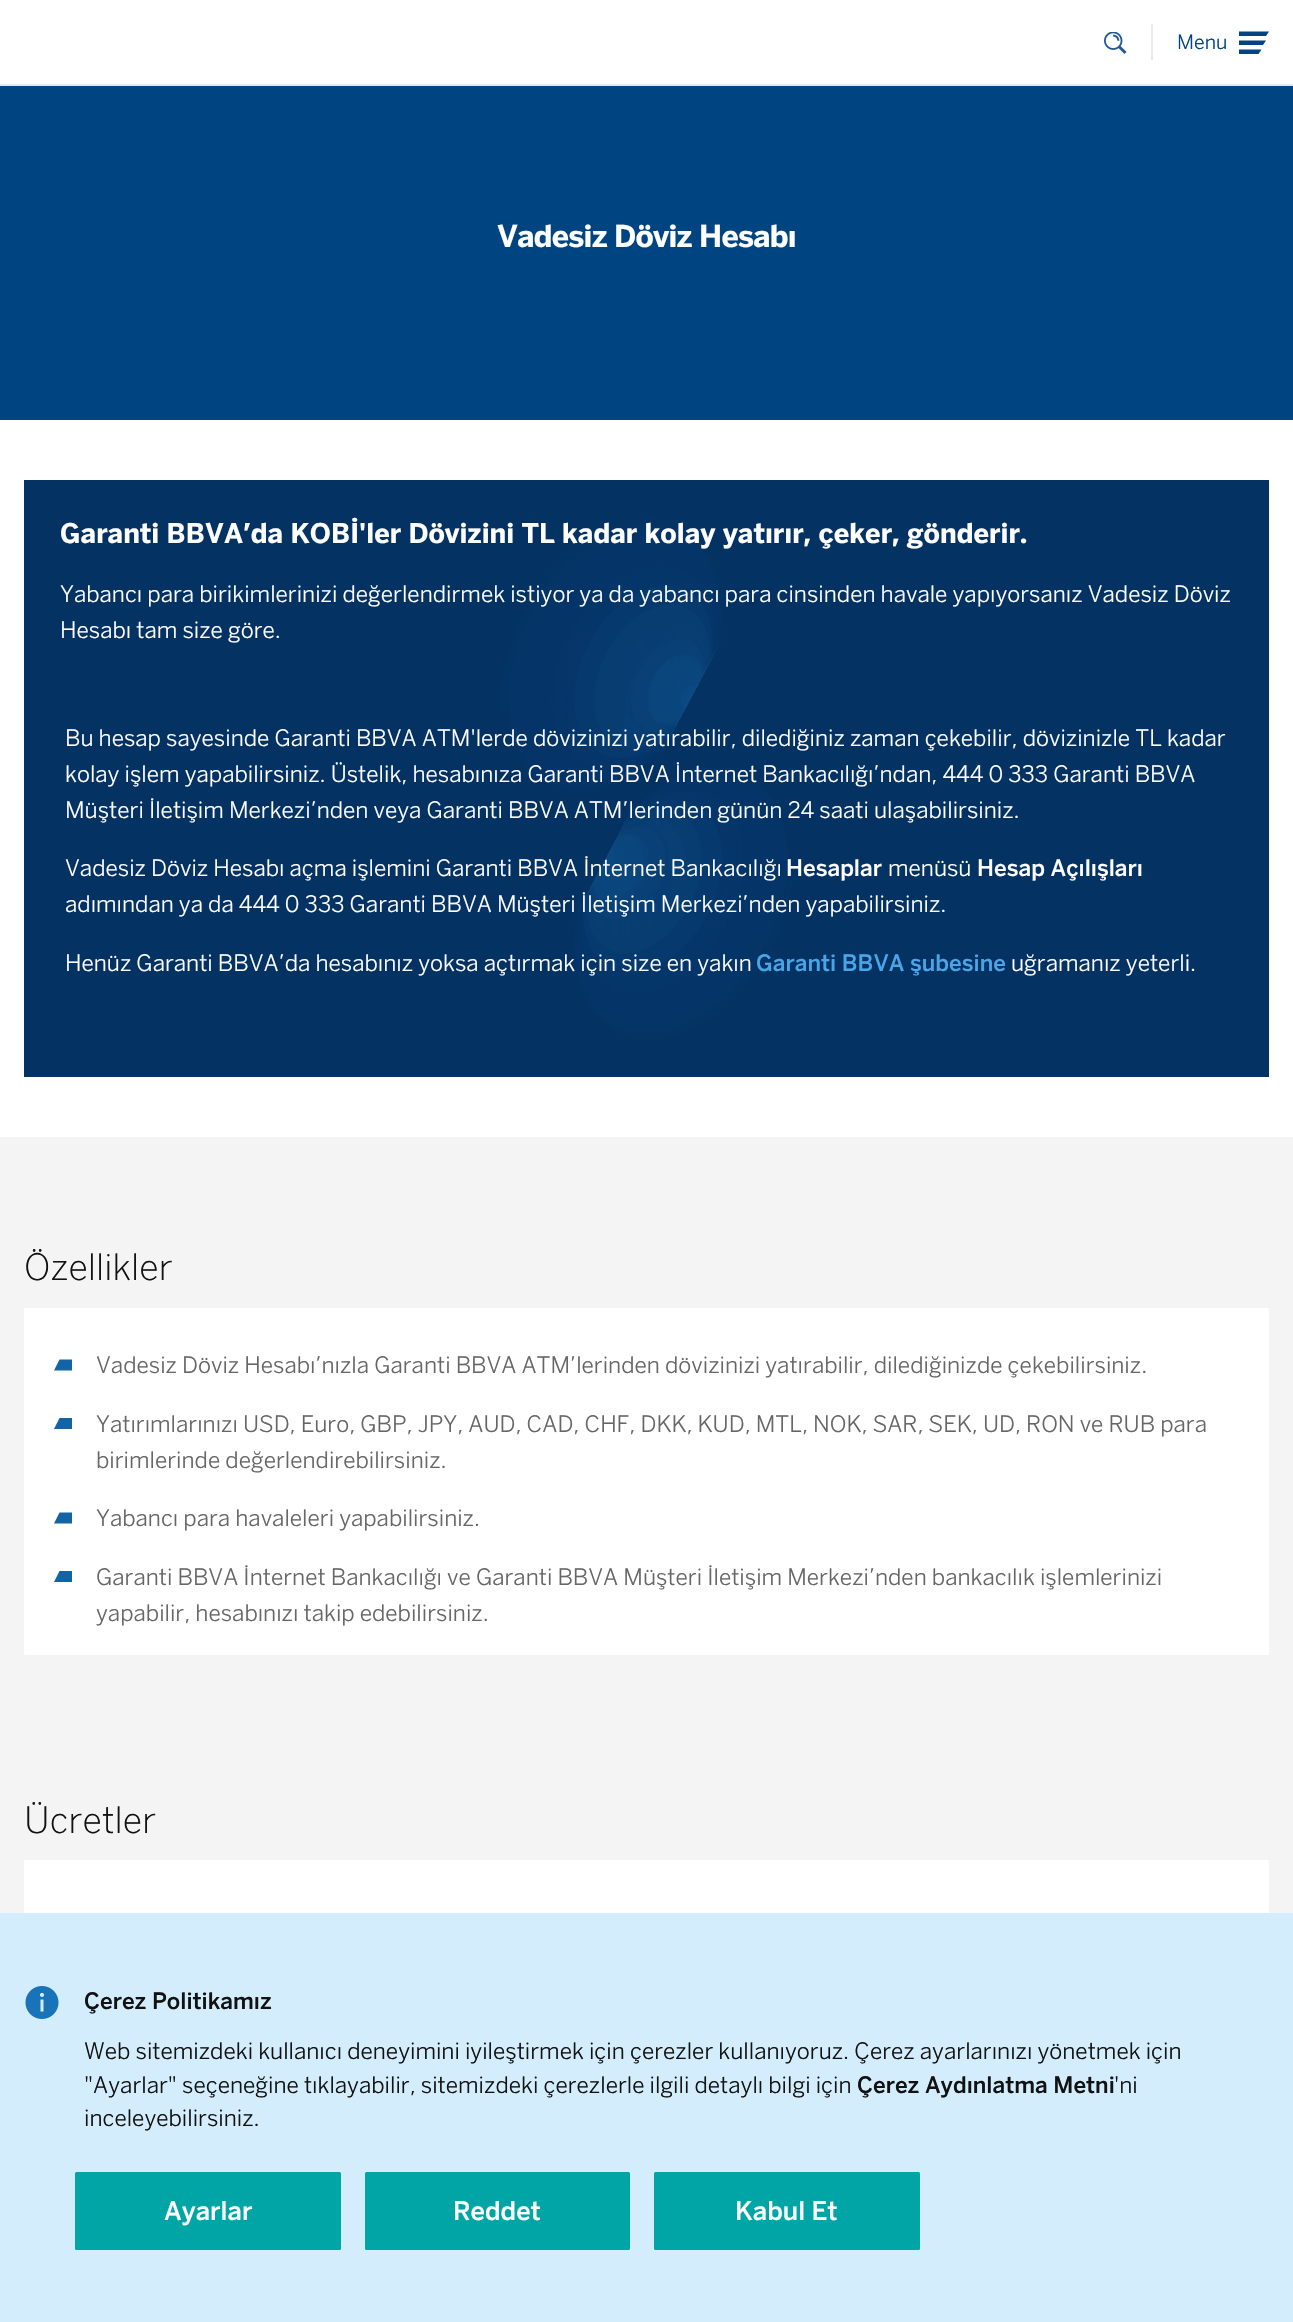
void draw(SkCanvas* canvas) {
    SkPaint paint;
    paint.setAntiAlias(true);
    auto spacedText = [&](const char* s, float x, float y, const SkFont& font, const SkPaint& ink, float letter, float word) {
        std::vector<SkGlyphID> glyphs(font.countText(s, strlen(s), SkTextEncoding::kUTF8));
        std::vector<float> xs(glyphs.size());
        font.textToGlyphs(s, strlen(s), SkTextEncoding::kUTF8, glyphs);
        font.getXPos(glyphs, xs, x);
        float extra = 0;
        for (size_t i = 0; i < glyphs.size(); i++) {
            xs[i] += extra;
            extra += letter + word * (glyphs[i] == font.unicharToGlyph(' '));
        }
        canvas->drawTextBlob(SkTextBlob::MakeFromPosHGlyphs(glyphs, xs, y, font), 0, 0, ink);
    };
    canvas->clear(0xFFFFFFFF);
    paint.setColor(0xFFE9E9E9);
    canvas->drawRect(SkRect::MakeXYWH(0, 84, 1293, 2), paint);
    canvas->drawImageRect(SkImages::DeferredFromEncodedData(SkData::MakeFromFileName("img1.png")), SkRect::MakeXYWH(1104, 32, 23, 22), SkSamplingOptions());
    canvas->drawRect(SkRect::MakeXYWH(1151, 24, 2, 36), paint);
    SkFont font1(fontMgr->matchFamilyStyle("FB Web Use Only", SkFontStyle(300, SkFontStyle::kNormal_Width, SkFontStyle::kUpright_Slant)), 19.5f);
    font1.setSubpixel(true);
    paint.setColor(0xFF004481);
    canvas->drawString("Menu", 1177, 49, font1, paint);
    canvas->drawPath(SkPathBuilder().moveTo(1239, 31.5f).lineTo(1269, 31.5f).lineTo(1266, 36).lineTo(1239, 36).close().moveTo(1239, 40.5f).lineTo(1266, 40.5f).lineTo(1263, 45).lineTo(1239, 45).close().moveTo(1239, 49.5f).lineTo(1261.5f, 49.5f).lineTo(1258.5f, 54).lineTo(1239, 54).close().detach(), paint);
    canvas->drawRect(SkRect::MakeXYWH(0, 86, 1293, 334), paint);
    SkFont font2(fontMgr->matchFamilyStyle("FB Web Use Only", SkFontStyle::Bold()), 30);
    font2.setSubpixel(true);
    paint.setColor(0xFFFFFFFF);
    spacedText("Vadesiz Döviz Hesabı", 497, 247, font2, paint, -0.75f, 0);
    canvas->drawImageRect(SkImages::DeferredFromEncodedData(SkData::MakeFromFileName("img2.png")), SkRect::MakeXYWH(24, 480, 1245, 597), SkSamplingOptions());
    SkFont font3(fontMgr->matchFamilyStyle("FB Web Use Only", SkFontStyle::Bold()), 27);
    font3.setSubpixel(true);
    canvas->drawString("Garanti BBVA’da KOBİ'ler Dövizini TL kadar kolay yatırır, çeker, gönderir.", 60, 543, font3, paint);
    SkFont font4(fontMgr->matchFamilyStyle("FB Web Use Only", SkFontStyle(300, SkFontStyle::kNormal_Width, SkFontStyle::kUpright_Slant)), 22.5f);
    font4.setSubpixel(true);
    canvas->drawString("Yabancı para birikimlerinizi değerlendirmek istiyor ya da yabancı para cinsinden havale yapıyorsanız Vadesiz Döviz", 60, 602, font4, paint);
    canvas->drawString("Hesabı tam size göre.", 60, 638, font4, paint);
    canvas->drawString("Bu hesap sayesinde Garanti BBVA ATM'lerde dövizinizi yatırabilir, dilediğiniz zaman çekebilir, dövizinizle TL kadar", 65, 746, font4, paint);
    canvas->drawString("kolay işlem yapabilirsiniz. Üstelik, hesabınıza Garanti BBVA İnternet Bankacılığı’ndan, 444 0 333 Garanti BBVA", 65, 782, font4, paint);
    canvas->drawString("Müşteri İletişim Merkezi’nden veya Garanti BBVA ATM’lerinden günün 24 saati ulaşabilirsiniz.", 65, 818, font4, paint);
    canvas->drawString("Vadesiz Döviz Hesabı açma işlemini Garanti BBVA İnternet Bankacılığı", 65, 876, font4, paint);
    SkFont font5(fontMgr->matchFamilyStyle("FB Web Use Only", SkFontStyle(500, SkFontStyle::kNormal_Width, SkFontStyle::kUpright_Slant)), 22.5f);
    font5.setSubpixel(true);
    canvas->drawString("Hesaplar", 786, 876, font5, paint);
    canvas->drawString("menüsü", 888, 876, font4, paint);
    canvas->drawString("Hesap Açılışları", 977, 876, font5, paint);
    canvas->drawString("adımından ya da 444 0 333 Garanti BBVA Müşteri İletişim Merkezi’nden yapabilirsiniz.", 65, 912, font4, paint);
    canvas->drawString("Henüz Garanti BBVA’da hesabınız yoksa açtırmak için size en yakın", 65, 971, font4, paint);
    paint.setColor(0xFF49A5E6);
    canvas->drawString("Garanti BBVA şubesine", 756, 971, font5, paint);
    paint.setColor(0xFFFFFFFF);
    canvas->drawString("uğramanız yeterli.", 1011, 971, font4, paint);
    paint.setColor(0xFFF4F4F4);
    canvas->drawRect(SkRect::MakeXYWH(0, 1137, 1293, 776), paint);
    SkFont font6(fontMgr->matchFamilyStyle("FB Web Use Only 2", SkFontStyle(300, SkFontStyle::kNormal_Width, SkFontStyle::kUpright_Slant)), 36);
    font6.setSubpixel(true);
    paint.setColor(0xFF121212);
    canvas->drawString("Özellikler", 24, 1280, font6, paint);
    paint.setColor(0xFFFFFFFF);
    canvas->drawRoundRect(SkRect::MakeXYWH(24, 1308, 1245, 347), 1.5f, 1.5f, paint);
    paint.setColor(0xFF1464A5);
    canvas->drawPath(SkPathBuilder(SkPathFillType::kEvenOdd).moveTo(59.5f, 1359.5f).lineTo(54, 1370.5f).lineTo(72, 1370.5f).lineTo(72, 1359.5f).close().detach(), paint);
    paint.setColor(0xFF666666);
    canvas->drawString("Vadesiz Döviz Hesabı’nızla Garanti BBVA ATM’lerinden dövizinizi yatırabilir, dilediğinizde çekebilirsiniz.", 96, 1373, font4, paint);
    paint.setColor(0xFF1464A5);
    canvas->drawPath(SkPathBuilder(SkPathFillType::kEvenOdd).moveTo(59.5f, 1418).lineTo(54, 1429).lineTo(72, 1429).lineTo(72, 1418).close().detach(), paint);
    paint.setColor(0xFF666666);
    canvas->drawString("Yatırımlarınızı USD, Euro, GBP, JPY, AUD, CAD, CHF, DKK, KUD, MTL, NOK, SAR, SEK, UD, RON ve RUB para", 96, 1432, font4, paint);
    canvas->drawString("birimlerinde değerlendirebilirsiniz.", 96, 1468, font4, paint);
    paint.setColor(0xFF1464A5);
    canvas->drawPath(SkPathBuilder(SkPathFillType::kEvenOdd).moveTo(59.5f, 1512.5f).lineTo(54, 1523.5f).lineTo(72, 1523.5f).lineTo(72, 1512.5f).close().detach(), paint);
    paint.setColor(0xFF666666);
    canvas->drawString("Yabancı para havaleleri yapabilirsiniz.", 96, 1526, font4, paint);
    paint.setColor(0xFF1464A5);
    canvas->drawPath(SkPathBuilder(SkPathFillType::kEvenOdd).moveTo(59.5f, 1571).lineTo(54, 1582).lineTo(72, 1582).lineTo(72, 1571).close().detach(), paint);
    paint.setColor(0xFF666666);
    canvas->drawString("Garanti BBVA İnternet Bankacılığı ve Garanti BBVA Müşteri İletişim Merkezi’nden bankacılık işlemlerinizi", 96, 1585, font4, paint);
    canvas->drawString("yapabilir, hesabınızı takip edebilirsiniz.", 96, 1621, font4, paint);
    paint.setColor(0xFF121212);
    canvas->drawString("Ücretler", 24, 1833, font6, paint);
    paint.setColor(0xFFFFFFFF);
    canvas->drawRoundRect(SkRect::MakeXYWH(24, 1860, 1245, 99), 1.5f, 1.5f, paint);
    paint.setColor(0xFFD4EDFC);
    canvas->drawRect(SkRect::MakeXYWH(0, 1913, 1293, 409), paint);
    canvas->drawImageRect(SkImages::DeferredFromEncodedData(SkData::MakeFromFileName("img3.png")), SkRect::MakeXYWH(25, 1986, 34, 33), SkSamplingOptions());
    paint.setColor(0xFF121212);
    canvas->drawString("Çerez Politikamız", 84, 2009, font5, paint);
    canvas->drawString("Web sitemizdeki kullanıcı deneyimini iyileştirmek için çerezler kullanıyoruz. Çerez ayarlarınızı yönetmek için", 84, 2059, font4, paint);
    canvas->drawString("\"Ayarlar\" seçeneğine tıklayabilir, sitemizdeki çerezlerle ilgili detaylı bilgi için", 84, 2093, font4, paint);
    canvas->drawString("Çerez Aydınlatma Metni", 857, 2093, font5, paint);
    canvas->drawString("'ni", 1114, 2093, font4, paint);
    canvas->drawString("inceleyebilirsiniz.", 84, 2126, font4, paint);
    paint.setColor(0xFF02A5A5);
    canvas->drawRoundRect(SkRect::MakeXYWH(75, 2172, 266, 78), 1.5f, 1.5f, paint);
    SkFont font7(fontMgr->matchFamilyStyle("FB Web Use Only", SkFontStyle(500, SkFontStyle::kNormal_Width, SkFontStyle::kUpright_Slant)), 25.5f);
    font7.setSubpixel(true);
    paint.setColor(0xFFFFFFFF);
    canvas->drawString("Ayarlar", 164, 2220, font7, paint);
    paint.setColor(0xFF02A5A5);
    canvas->drawRoundRect(SkRect::MakeXYWH(365, 2172, 265, 78), 1.5f, 1.5f, paint);
    paint.setColor(0xFFFFFFFF);
    canvas->drawString("Reddet", 453, 2220, font7, paint);
    paint.setColor(0xFF02A5A5);
    canvas->drawRoundRect(SkRect::MakeXYWH(654, 2172, 266, 78), 1.5f, 1.5f, paint);
    paint.setColor(0xFFFFFFFF);
    canvas->drawString("Kabul Et", 735, 2220, font7, paint);
}
